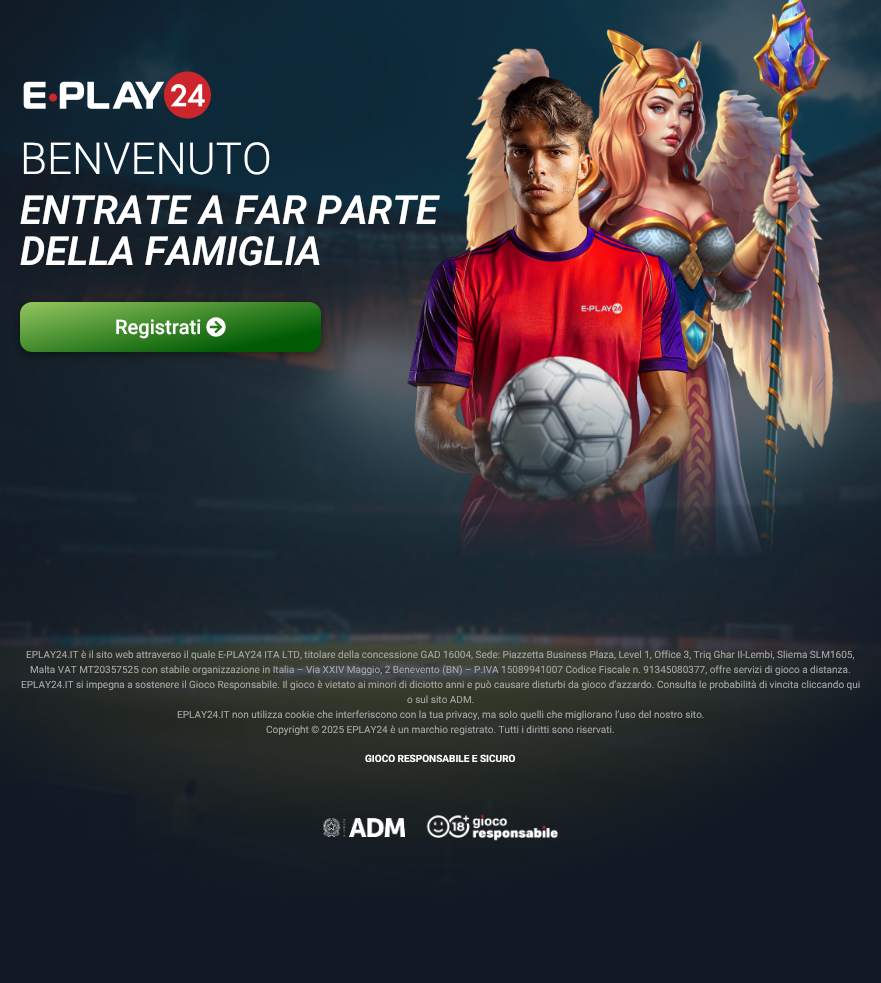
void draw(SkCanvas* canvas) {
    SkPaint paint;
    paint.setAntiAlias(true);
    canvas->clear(0xFFFFFFFF);
    canvas->drawImageRect(SkImages::DeferredFromEncodedData(SkData::MakeFromFileName("img1.png")), SkRect::MakeXYWH(0, 0, 881, 983), SkSamplingOptions());
    canvas->drawImageRect(SkImages::DeferredFromEncodedData(SkData::MakeFromFileName("img2.png")), SkRect::MakeXYWH(23, 71, 188, 48), SkSamplingOptions());
    SkFont font1(fontMgr->matchFamilyStyle("Roboto", SkFontStyle(300, SkFontStyle::kNormal_Width, SkFontStyle::kUpright_Slant)), 44);
    font1.setSubpixel(true);
    paint.setColor(0xFFFFFFFF);
    canvas->drawString("BENVENUTO", 20, 174, font1, paint);
    canvas->drawImageRect(SkImages::DeferredFromEncodedData(SkData::MakeFromFileName("img4.png")), SkRect::MakeXYWH(407, 0, 427, 557), SkSamplingOptions());
    SkFont font2(fontMgr->matchFamilyStyle("Roboto", SkFontStyle(600, SkFontStyle::kNormal_Width, SkFontStyle::kItalic_Slant)), 40);
    font2.setSubpixel(true);
    canvas->drawString("ENTRATE A FAR PARTE", 20, 224, font2, paint);
    canvas->drawString("DELLA FAMIGLIA", 20, 265, font2, paint);
    paint.setColor(0x80000000);
    paint.setMaskFilter(SkMaskFilter::MakeBlur(kNormal_SkBlurStyle, 5));
    canvas->drawRoundRect(SkRect::MakeXYWH(20, 304, 301, 50), 12, 12, paint);
    paint.setMaskFilter(nullptr);
    {
        const SkColor colors[] = {0xFF92C55E, 0xFF005B04};
        const float stops[] = {0, 0.82f};
        const SkPoint ends[] = {{160, 275}, {181, 379}};
        paint.setShader(SkGradientShader::MakeLinear(ends, colors, stops, 2, SkTileMode::kClamp));
        paint.setAlpha(255);
    }
    canvas->drawRoundRect(SkRect::MakeXYWH(20, 302, 301, 50), 12, 12, paint);
    SkFont font3(fontMgr->matchFamilyStyle("Roboto", SkFontStyle(500, SkFontStyle::kNormal_Width, SkFontStyle::kUpright_Slant)), 20);
    font3.setSubpixel(true);
    paint.setShader(nullptr);
    paint.setColor(0xFFFFFFFF);
    canvas->drawString("Registrati", 115, 334, font3, paint);
    canvas->drawImageRect(SkImages::DeferredFromEncodedData(SkData::MakeFromFileName("img3.png")), SkRect::MakeXYWH(206, 317, 20, 20), SkSamplingOptions());
    SkFont font4(fontMgr->matchFamilyStyle("Roboto", SkFontStyle::Normal()), 10);
    font4.setSubpixel(true);
    paint.setColor(0xFFA6A6A6);
    canvas->drawString("EPLAY24.IT è il sito web attraverso il quale E-PLAY24 ITA LTD, titolare della concessione GAD 16004, Sede: Piazzetta Business Plaza, Level 1, Office 3, Triq Ghar Il-Lembi, Sliema SLM1605,", 26, 658, font4, paint);
    canvas->drawString("Malta VAT MT20357525 con stabile organizzazione in Italia – Via XXIV Maggio, 2 Benevento (BN) – P.IVA 15089941007 Codice Fiscale n. 91345080377, offre servizi di gioco a distanza.", 30, 673, font4, paint);
    canvas->drawString("EPLAY24.IT si impegna a sostenere il Gioco Responsabile. Il gioco è vietato ai minori di diciotto anni e può causare disturbi da gioco d’azzardo. Consulta le probabilità di vincita cliccando qui", 21, 688, font4, paint);
    canvas->drawString("o sul sito ADM.", 407, 703, font4, paint);
    canvas->drawString("EPLAY24.IT non utilizza cookie che interferiscono con la tua privacy, ma solo quelli che migliorano l’uso del nostro sito.", 177, 718, font4, paint);
    canvas->drawString("Copyright © 2025 EPLAY24 è un marchio registrato. Tutti i diritti sono riservati.", 266, 733, font4, paint);
    SkFont font5(fontMgr->matchFamilyStyle("Roboto", SkFontStyle::Bold()), 10);
    font5.setSubpixel(true);
    paint.setColor(0xFFFFFFFF);
    canvas->drawString("GIOCO RESPONSABILE E SICURO", 365, 762, font5, paint);
    canvas->drawImageRect(SkImages::DeferredFromEncodedData(SkData::MakeFromFileName("img5.png")), SkRect::MakeXYWH(323, 814, 235, 27), SkSamplingOptions());
}
